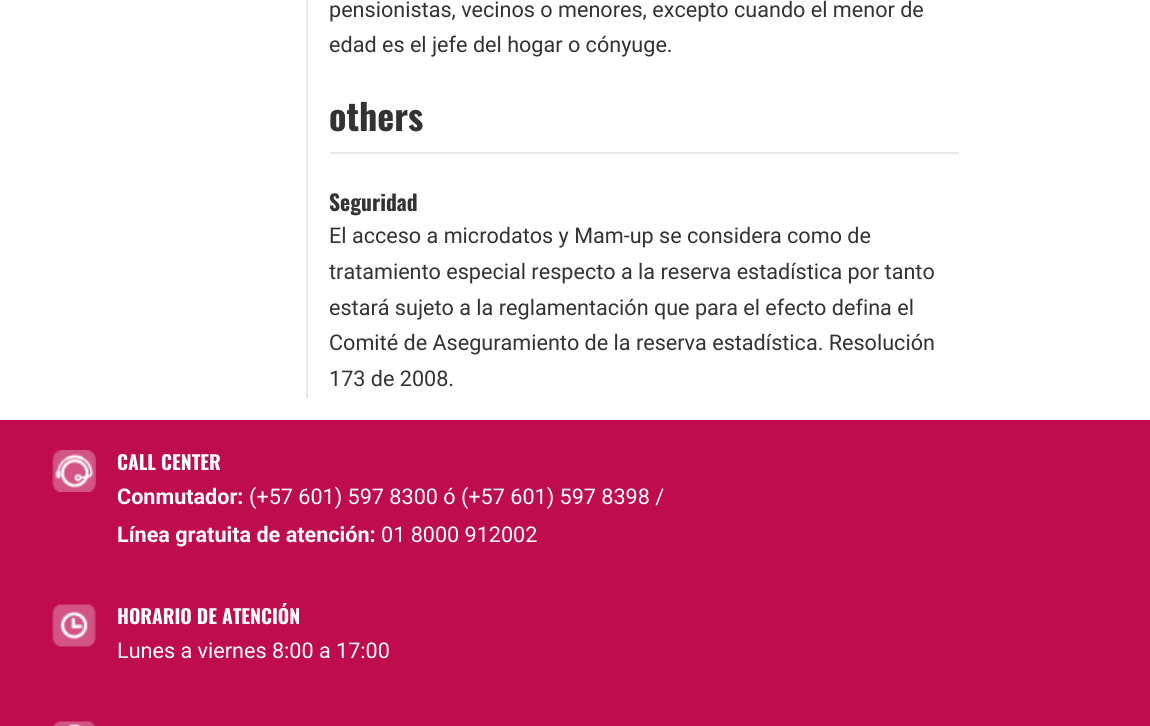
import math
import cairo

surface = cairo.ImageSurface(cairo.FORMAT_RGB24, 1150, 726)
ctx = cairo.Context(surface)
options = cairo.FontOptions()
options.set_hint_metrics(cairo.HINT_METRICS_OFF)
options.set_hint_style(cairo.HINT_STYLE_NONE)
ctx.set_font_options(options)
ctx.set_miter_limit(4)


def set_color(code):
    ctx.set_source_rgb(*(v / 255 for v in bytes.fromhex(code[-6:])))


def draw_text(x, y, s, family, size, color, bold=False, italic=False):
    ctx.select_font_face(family, cairo.FONT_SLANT_ITALIC if italic else cairo.FONT_SLANT_NORMAL, cairo.FONT_WEIGHT_BOLD if bold else cairo.FONT_WEIGHT_NORMAL)
    ctx.set_font_size(size)
    set_color(color)
    ctx.move_to(x, y)
    ctx.show_text(s)


def fill_rect(x, y, w, h, color):
    set_color(color)
    ctx.rectangle(x, y, w, h)
    ctx.fill()


def draw_image(path, x, y, w, h):
    ctx.save()
    ctx.set_source_surface(cairo.ImageSurface.create_from_png(path), x, y)
    ctx.rectangle(x, y, w, h)
    ctx.fill()
    ctx.restore()


set_color("#ffffff")
ctx.paint()
fill_rect(306, 0, 2, 398, "#e8e8e8")
draw_text(329, 17, "pensionistas, vecinos o menores, excepto cuando el menor de", "Roboto", 21.6, "#333333")
draw_text(329, 52, "edad es el jefe del hogar o cónyuge.", "Roboto", 21.6, "#333333")
fill_rect(330, 152, 629, 2, "#e8e8e8")
draw_text(329, 131, "others", "Oswald", 36, "#333333", bold=True)
draw_text(329, 211, "Seguridad", "Oswald", 21.6, "#333333", bold=True)
draw_text(329, 243, "El acceso a microdatos y Mam-up se considera como de", "Roboto", 21.6, "#333333")
draw_text(329, 279, "tratamiento especial respecto a la reserva estadística por tanto", "Roboto", 21.6, "#333333")
draw_text(329, 315, "estará sujeto a la reglamentación que para el efecto defina el", "Roboto", 21.6, "#333333")
draw_text(329, 350, "Comité de Aseguramiento de la reserva estadística. Resolución", "Roboto", 21.6, "#333333")
draw_text(329, 386, "173 de 2008.", "Roboto", 21.6, "#333333")
fill_rect(0, 420, 1150, 306, "#be0c4d")
draw_image("assets/img1.png", 52, 450, 44, 42)
draw_text(117, 470, "CALL CENTER", "Oswald", 19.5, "#ffffff", bold=True)
draw_text(117, 504, "Conmutador:", "Roboto", 21.6, "#ffffff", bold=True)
draw_text(249, 504, "(+57 601) 597 8300 ó (+57 601) 597 8398 /", "Roboto", 21.6, "#ffffff")
draw_text(117, 542, "Línea gratuita de atención:", "Roboto", 21.6, "#ffffff", bold=True)
draw_text(381, 542, "01 8000 912002", "Roboto", 21.6, "#ffffff")
draw_image("assets/img2.png", 52, 604, 44, 43)
draw_text(117, 624, "HORARIO DE ATENCIÓN", "Oswald", 19.5, "#ffffff", bold=True)
draw_text(117, 658, "Lunes a viernes 8:00 a 17:00", "Roboto", 21.6, "#ffffff")
draw_image("assets/img3.png", 53, 721, 42, 5)
surface.write_to_png("output.png")
